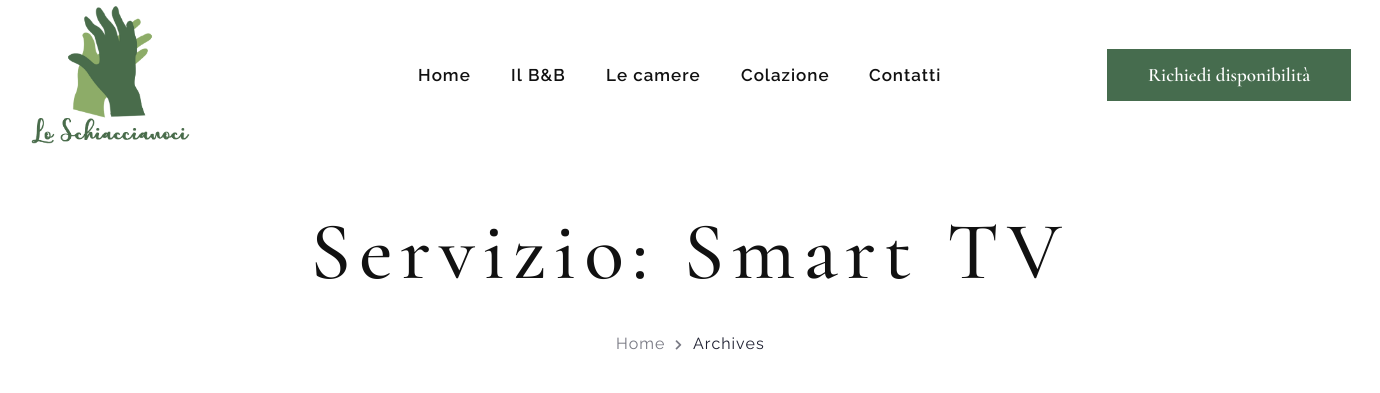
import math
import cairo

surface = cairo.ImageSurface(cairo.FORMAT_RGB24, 1380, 393)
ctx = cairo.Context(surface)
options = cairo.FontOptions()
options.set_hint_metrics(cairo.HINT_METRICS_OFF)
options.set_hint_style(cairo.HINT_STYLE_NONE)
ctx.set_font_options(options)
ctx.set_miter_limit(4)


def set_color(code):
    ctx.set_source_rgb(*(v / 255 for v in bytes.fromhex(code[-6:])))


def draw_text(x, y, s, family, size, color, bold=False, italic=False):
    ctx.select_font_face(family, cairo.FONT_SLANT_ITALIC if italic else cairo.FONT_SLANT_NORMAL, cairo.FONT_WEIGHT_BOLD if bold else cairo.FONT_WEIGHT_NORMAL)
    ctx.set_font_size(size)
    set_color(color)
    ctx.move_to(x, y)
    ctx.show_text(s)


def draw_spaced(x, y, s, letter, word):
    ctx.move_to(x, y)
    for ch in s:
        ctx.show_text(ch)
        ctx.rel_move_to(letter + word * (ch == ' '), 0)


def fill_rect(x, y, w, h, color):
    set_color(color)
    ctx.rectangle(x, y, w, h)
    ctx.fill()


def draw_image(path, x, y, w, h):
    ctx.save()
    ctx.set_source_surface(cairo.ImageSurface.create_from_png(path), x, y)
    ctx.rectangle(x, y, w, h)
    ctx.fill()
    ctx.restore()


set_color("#ffffff")
ctx.paint()
draw_image("assets/img1.png", 31, 6, 159, 138)
ctx.select_font_face("Raleway SemiBold")
ctx.set_font_size(17)
set_color("#111111")
draw_spaced(418, 81, "Home", 1, 0)
draw_spaced(511, 81, "Il B&B", 1, 0)
draw_spaced(606, 81, "Le camere", 1, 0)
draw_spaced(741, 81, "Colazione", 1, 0)
draw_spaced(869, 81, "Contatti", 1, 0)
ctx.rectangle(1107.5, 49.5, 243, 51)
set_color("#466c4e")
ctx.set_line_width(1)
ctx.stroke()
fill_rect(1108, 50, 242, 50, "#466c4e")
draw_text(1148, 81, "Richiedi disponibilità", "Cormorant Garamond SemiBold", 19, "#ffffff")
ctx.select_font_face("Cormorant Garamond Medium")
ctx.set_font_size(82)
set_color("#111111")
draw_spaced(310, 278, "Servizio: Smart TV", 8, 0)
ctx.select_font_face("Raleway")
ctx.set_font_size(16)
set_color("#787983")
draw_spaced(616, 349, "Home", 1, 0)
draw_image("assets/img2.png", 675, 340, 7, 10)
set_color("#1e2031")
draw_spaced(693, 349, "Archives", 1, 0)
surface.write_to_png("output.png")
